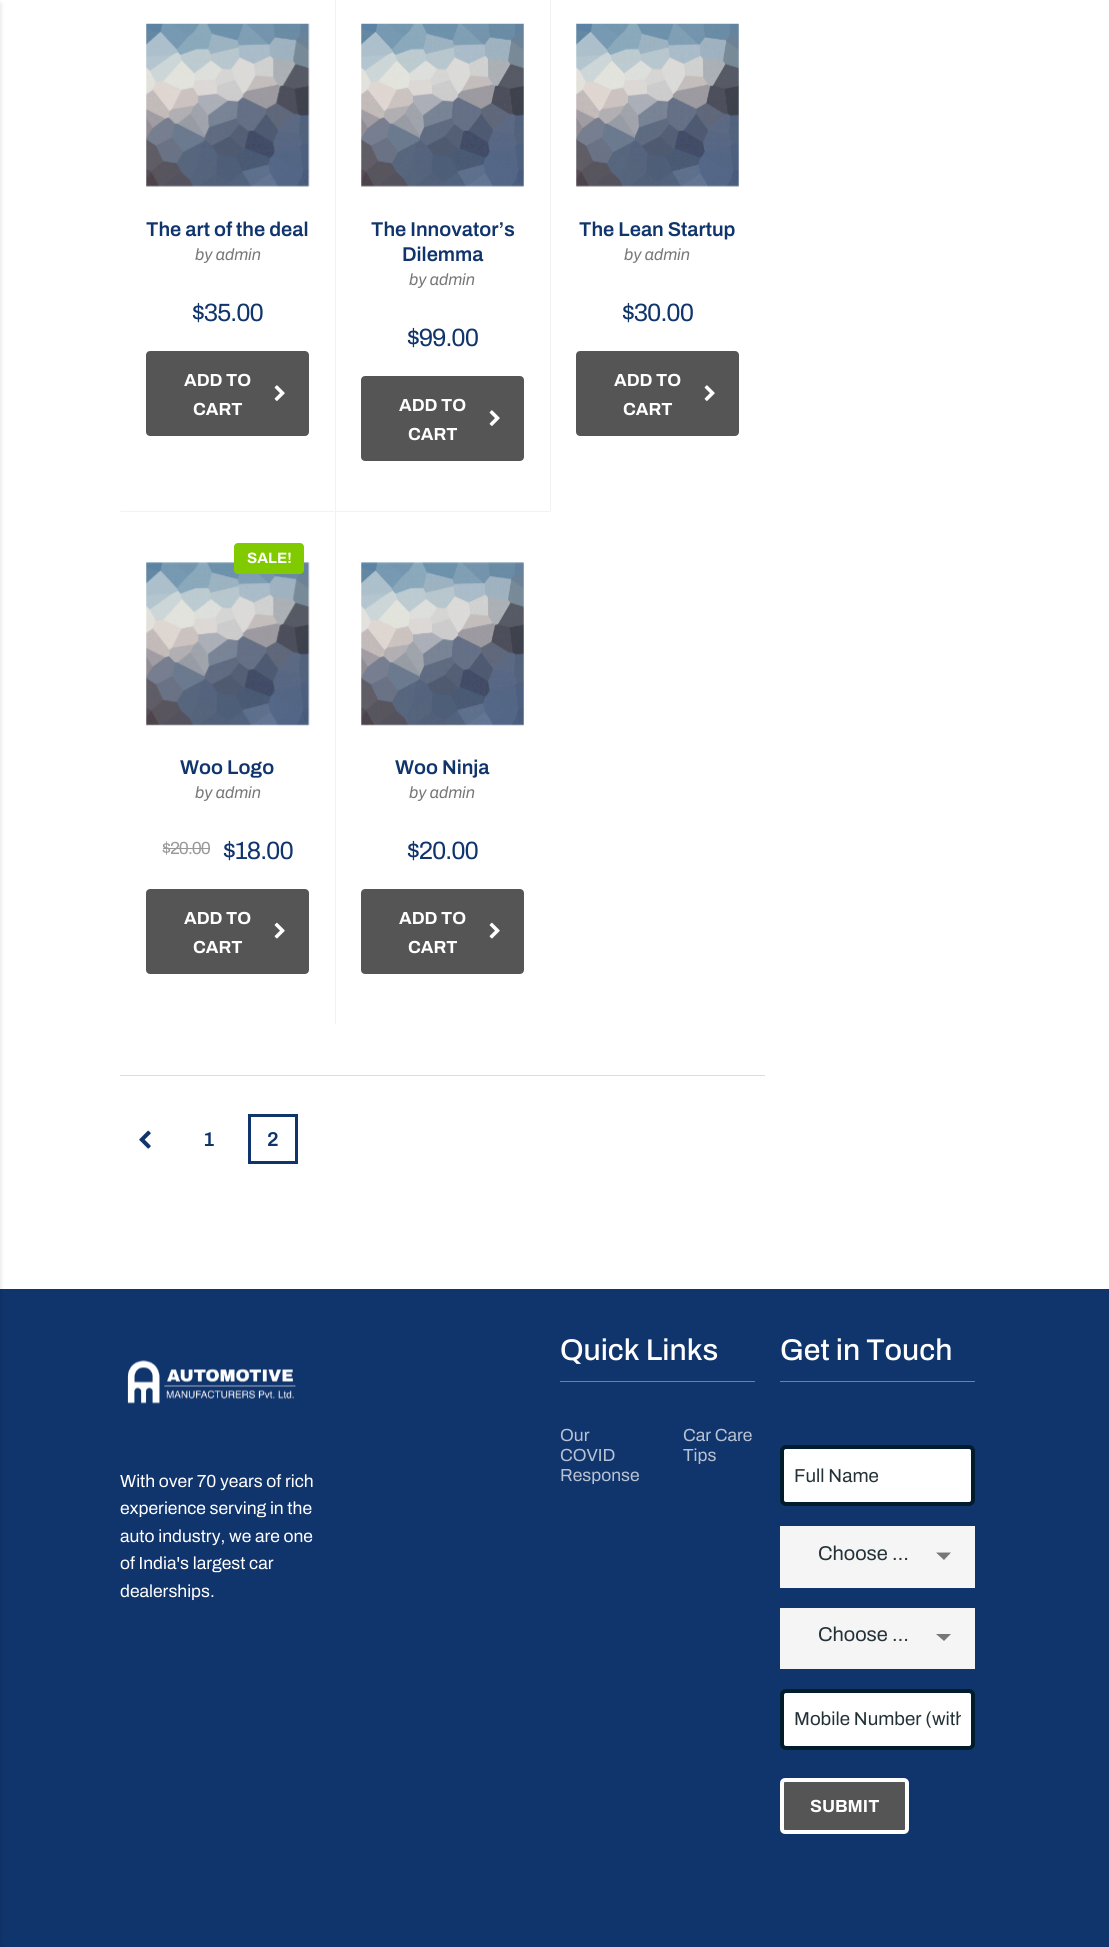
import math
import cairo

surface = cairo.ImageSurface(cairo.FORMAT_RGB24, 1109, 1947)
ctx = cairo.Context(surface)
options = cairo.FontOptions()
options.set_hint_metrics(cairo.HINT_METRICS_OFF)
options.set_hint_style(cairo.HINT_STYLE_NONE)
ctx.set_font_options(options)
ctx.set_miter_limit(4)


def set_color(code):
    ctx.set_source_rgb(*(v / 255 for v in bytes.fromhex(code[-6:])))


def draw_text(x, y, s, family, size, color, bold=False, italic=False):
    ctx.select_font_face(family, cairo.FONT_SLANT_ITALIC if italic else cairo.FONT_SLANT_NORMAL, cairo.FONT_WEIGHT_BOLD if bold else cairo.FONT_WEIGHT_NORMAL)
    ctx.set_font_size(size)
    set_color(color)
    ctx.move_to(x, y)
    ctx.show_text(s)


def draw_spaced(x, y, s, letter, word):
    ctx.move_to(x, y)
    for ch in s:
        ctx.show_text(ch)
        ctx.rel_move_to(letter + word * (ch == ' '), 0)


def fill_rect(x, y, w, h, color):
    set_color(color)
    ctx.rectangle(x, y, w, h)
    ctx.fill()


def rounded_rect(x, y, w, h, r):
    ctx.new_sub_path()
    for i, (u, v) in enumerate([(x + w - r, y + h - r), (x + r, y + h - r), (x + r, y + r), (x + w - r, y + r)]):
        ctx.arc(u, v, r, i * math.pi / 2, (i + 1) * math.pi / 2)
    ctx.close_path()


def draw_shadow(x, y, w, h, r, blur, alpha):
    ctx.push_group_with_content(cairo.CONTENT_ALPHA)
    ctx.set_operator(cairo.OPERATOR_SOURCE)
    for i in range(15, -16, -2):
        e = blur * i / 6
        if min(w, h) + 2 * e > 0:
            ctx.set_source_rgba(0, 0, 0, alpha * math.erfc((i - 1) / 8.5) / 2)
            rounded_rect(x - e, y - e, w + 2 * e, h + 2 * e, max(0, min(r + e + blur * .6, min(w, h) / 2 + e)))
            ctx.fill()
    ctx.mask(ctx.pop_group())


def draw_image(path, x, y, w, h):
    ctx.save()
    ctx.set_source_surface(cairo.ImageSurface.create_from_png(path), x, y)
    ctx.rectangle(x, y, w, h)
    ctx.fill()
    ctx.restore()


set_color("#ffffff")
ctx.paint()
fill_rect(0, 1289, 1109, 658, "#10346c")
set_color("#000000")
draw_shadow(-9, 4, 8, 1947, 0, 3, 0.2)
fill_rect(120, 1075, 645, 1, "#dddddd")
draw_image("assets/img1.png", 146, 23, 164, 164)
draw_text(146, 236, "The art of the deal", "Archivo SemiBold", 20, "#10346c")
draw_text(195, 260, "by admin", "Archivo", 16.25, "#777777", italic=True)
ctx.select_font_face("Archivo")
ctx.set_font_size(25)
set_color("#10346c")
draw_spaced(192, 321, "$35.00", -1, 0)
set_color("#555555")
rounded_rect(148, 353, 159, 81, 2)
ctx.fill_preserve()
ctx.set_line_width(4)
ctx.stroke()
draw_text(184, 386, "ADD TO", "Archivo", 17.5, "#ffffff", bold=True)
draw_image("assets/img2.png", 274, 385, 11, 16)
draw_text(193, 415, "CART", "Archivo", 17.5, "#ffffff", bold=True)
set_color("#f2f2f2")
ctx.new_path()
ctx.move_to(335, 512)
ctx.line_to(335, -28)
ctx.line_to(336, -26)
ctx.line_to(336, 511)
ctx.close_path()
ctx.fill()
draw_image("assets/img3.png", 361, 23, 163, 164)
draw_text(371, 236, "The Innovator’s", "Archivo SemiBold", 20, "#10346c")
draw_text(402, 261, "Dilemma", "Archivo SemiBold", 20, "#10346c")
draw_text(409, 285, "by admin", "Archivo", 16.25, "#777777", italic=True)
ctx.select_font_face("Archivo")
ctx.set_font_size(25)
set_color("#10346c")
draw_spaced(407, 346, "$99.00", -1, 0)
set_color("#555555")
rounded_rect(363, 378, 159, 81, 2)
ctx.fill_preserve()
ctx.stroke()
draw_text(399, 411, "ADD TO", "Archivo", 17.5, "#ffffff", bold=True)
draw_image("assets/img2.png", 489, 410, 11, 16)
draw_text(408, 440, "CART", "Archivo", 17.5, "#ffffff", bold=True)
set_color("#f2f2f2")
ctx.new_path()
ctx.move_to(550, 512)
ctx.line_to(550, -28)
ctx.line_to(551, -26)
ctx.line_to(551, 511)
ctx.close_path()
ctx.fill()
draw_image("assets/img3.png", 576, 23, 163, 164)
draw_text(579, 236, "The Lean Startup", "Archivo SemiBold", 20, "#10346c")
draw_text(624, 260, "by admin", "Archivo", 16.25, "#777777", italic=True)
ctx.select_font_face("Archivo")
ctx.set_font_size(25)
set_color("#10346c")
draw_spaced(622, 321, "$30.00", -1, 0)
set_color("#555555")
rounded_rect(578, 353, 159, 81, 2)
ctx.fill_preserve()
ctx.stroke()
draw_text(614, 386, "ADD TO", "Archivo", 17.5, "#ffffff", bold=True)
draw_image("assets/img2.png", 704, 385, 11, 16)
draw_text(623, 415, "CART", "Archivo", 17.5, "#ffffff", bold=True)
set_color("#f2f2f2")
ctx.new_path()
ctx.move_to(120, 511)
ctx.line_to(335, 511)
ctx.line_to(334, 512)
ctx.line_to(121, 512)
ctx.close_path()
ctx.fill()
draw_image("assets/img4.png", 146, 562, 164, 164)
set_color("#81ca00")
rounded_rect(234, 543, 70, 31, 4)
ctx.fill()
draw_text(247, 563, "SALE!", "Archivo", 15, "#ffffff", bold=True)
draw_text(180, 774, "Woo Logo", "Archivo SemiBold", 20, "#10346c")
draw_text(195, 798, "by admin", "Archivo", 16.25, "#777777", italic=True)
ctx.select_font_face("Archivo")
ctx.set_font_size(17.5)
set_color("#999999")
draw_spaced(162, 854, "$20.00", -1, 0)
fill_rect(163, 848, 47, 1, "#999999")
ctx.set_font_size(25)
set_color("#10346c")
draw_spaced(223, 859, "$18.00", -1, 0)
set_color("#555555")
rounded_rect(148, 891, 159, 81, 2)
ctx.fill_preserve()
ctx.stroke()
draw_text(184, 924, "ADD TO", "Archivo", 17.5, "#ffffff", bold=True)
draw_image("assets/img5.png", 274, 922, 11, 17)
draw_text(193, 953, "CART", "Archivo", 17.5, "#ffffff", bold=True)
set_color("#f2f2f2")
ctx.new_path()
ctx.move_to(335, 511)
ctx.line_to(550, 511)
ctx.line_to(549, 512)
ctx.line_to(336, 512)
ctx.close_path()
ctx.fill()
ctx.new_path()
ctx.move_to(335, 1025)
ctx.line_to(335, 511)
ctx.line_to(336, 512)
ctx.line_to(336, 1024)
ctx.close_path()
ctx.fill()
draw_image("assets/img6.png", 361, 562, 163, 164)
draw_text(395, 774, "Woo Ninja", "Archivo SemiBold", 20, "#10346c")
draw_text(409, 798, "by admin", "Archivo", 16.25, "#777777", italic=True)
ctx.select_font_face("Archivo")
ctx.set_font_size(25)
set_color("#10346c")
draw_spaced(407, 859, "$20.00", -1, 0)
set_color("#555555")
rounded_rect(363, 891, 159, 81, 2)
ctx.fill_preserve()
ctx.stroke()
draw_text(399, 924, "ADD TO", "Archivo", 17.5, "#ffffff", bold=True)
draw_image("assets/img5.png", 489, 922, 11, 17)
draw_text(408, 953, "CART", "Archivo", 17.5, "#ffffff", bold=True)
draw_image("assets/img7.png", 139, 1130, 12, 19)
draw_text(203, 1146, "1", "Archivo SemiBold", 20, "#10346c")
ctx.rectangle(249.5, 1115.5, 47, 47)
ctx.set_line_width(3)
ctx.stroke()
draw_text(267, 1146, "2", "Archivo SemiBold", 20, "#10346c")
draw_image("assets/img8.png", 127, 1360, 169, 44)
draw_text(120, 1487, "With over 70 years of rich", "Archivo", 17.5, "#ffffff")
draw_text(120, 1514, "experience serving in the", "Archivo", 17.5, "#ffffff")
draw_text(120, 1542, "auto industry, we are one", "Archivo", 17.5, "#ffffff")
draw_text(120, 1569, "of India's largest car", "Archivo", 17.5, "#ffffff")
draw_text(120, 1597, "dealerships.", "Archivo", 17.5, "#ffffff")
fill_rect(560, 1381, 195, 1, "#6e809c")
draw_text(560, 1360, "Quick Links", "Archivo Medium", 30, "#ffffff")
draw_text(560, 1441, "Our", "Archivo", 17.5, "#b7c2d3")
draw_text(560, 1461, "COVID", "Archivo", 17.5, "#b7c2d3")
draw_text(560, 1481, "Response", "Archivo", 17.5, "#b7c2d3")
draw_text(683, 1441, "Car Care", "Archivo", 17.5, "#b7c2d3")
draw_text(683, 1461, "Tips", "Archivo", 17.5, "#b7c2d3")
fill_rect(780, 1381, 195, 1, "#6e809c")
draw_text(780, 1360, "Get in Touch", "Archivo Medium", 30, "#ffffff")
rounded_rect(782, 1447, 191, 57, 4)
ctx.fill_preserve()
set_color("#001c2d")
ctx.set_line_width(4)
ctx.stroke()
draw_text(794, 1482, "Full Name", "Archivo", 18.75, "#243238")
fill_rect(780, 1526, 195, 62, "#f5f5f5")
draw_text(818, 1560, "Choose …", "Archivo", 20, "#243238")
set_color("#777777")
ctx.new_path()
ctx.move_to(936, 1552.5)
ctx.line_to(951, 1552.5)
ctx.line_to(944, 1560)
ctx.close_path()
ctx.fill()
fill_rect(780, 1608, 195, 61, "#f5f5f5")
draw_text(818, 1641, "Choose …", "Archivo", 20, "#243238")
set_color("#777777")
ctx.new_path()
ctx.move_to(936, 1634)
ctx.line_to(951, 1634)
ctx.line_to(944, 1641)
ctx.close_path()
ctx.fill()
set_color("#ffffff")
rounded_rect(782, 1691, 191, 57, 4)
ctx.fill_preserve()
set_color("#001c2d")
ctx.stroke()
ctx.save()
ctx.rectangle(794, 1709, 167, 20)
ctx.clip()
draw_text(794, 1725, "Mobile Number (with", "Archivo", 18.75, "#243238")
ctx.restore()
set_color("#555555")
rounded_rect(782, 1780, 125, 52, 3)
ctx.fill_preserve()
set_color("#ffffff")
ctx.stroke()
draw_text(810, 1812, "SUBMIT", "Archivo", 17.5, "#ffffff", bold=True)
surface.write_to_png("output.png")
